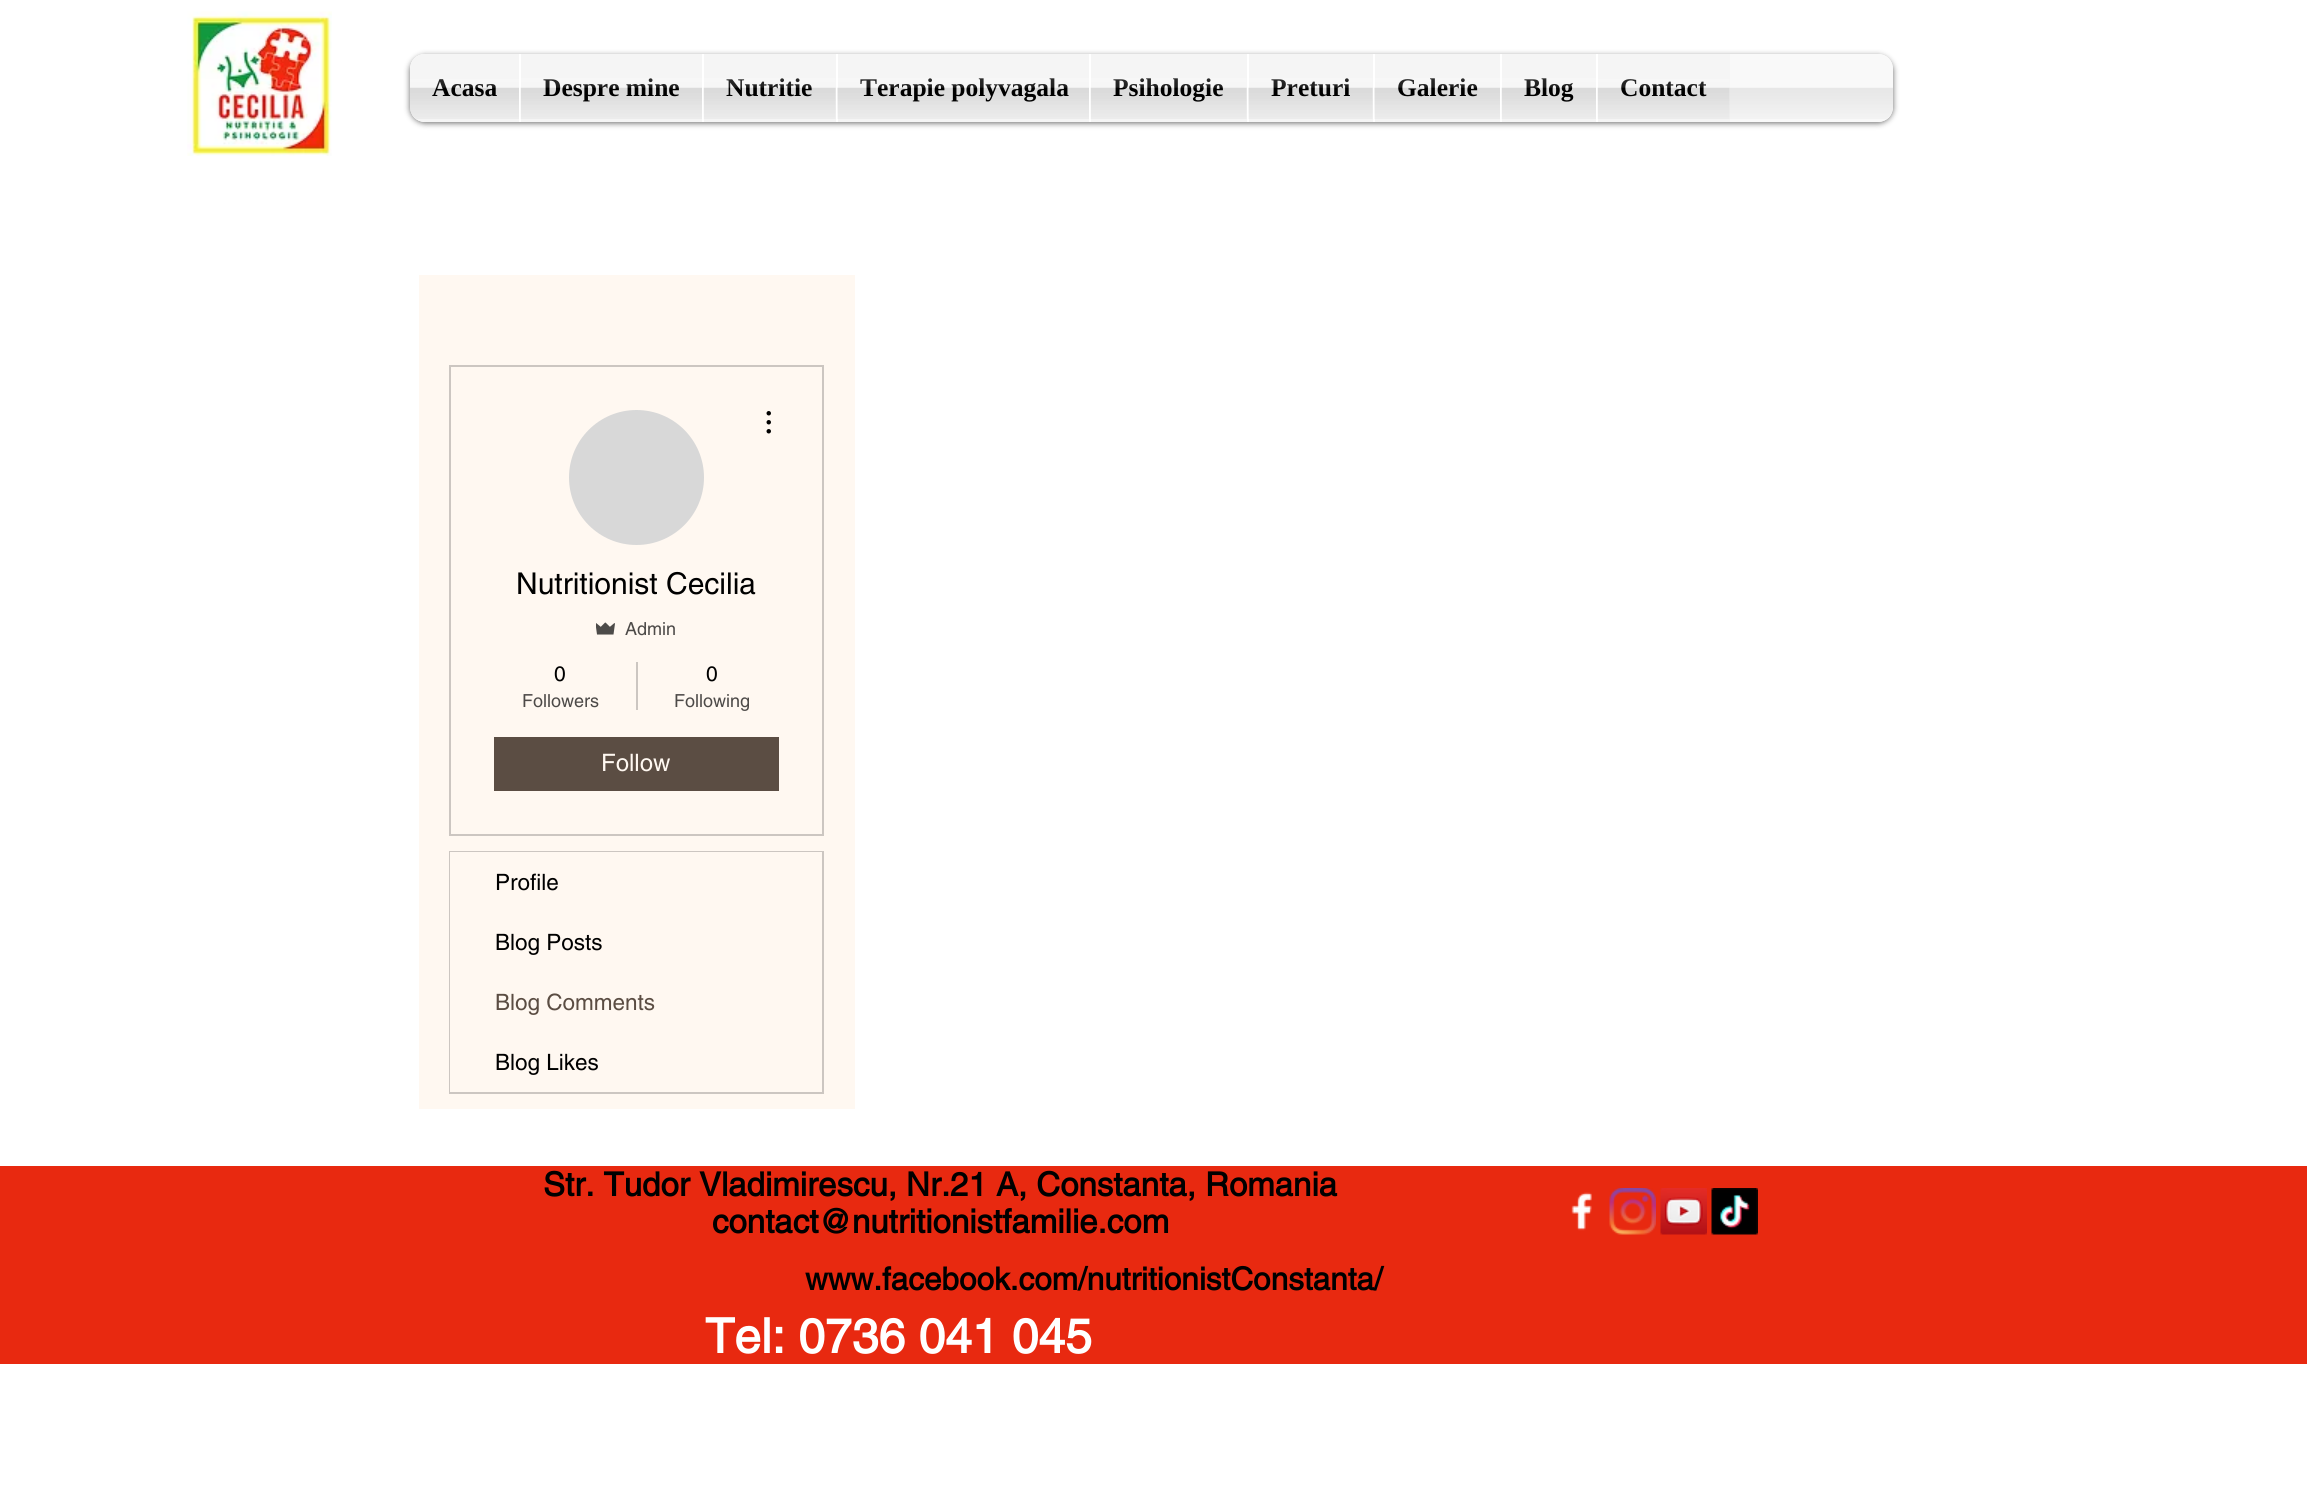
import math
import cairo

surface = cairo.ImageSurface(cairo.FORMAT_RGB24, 2307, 1499)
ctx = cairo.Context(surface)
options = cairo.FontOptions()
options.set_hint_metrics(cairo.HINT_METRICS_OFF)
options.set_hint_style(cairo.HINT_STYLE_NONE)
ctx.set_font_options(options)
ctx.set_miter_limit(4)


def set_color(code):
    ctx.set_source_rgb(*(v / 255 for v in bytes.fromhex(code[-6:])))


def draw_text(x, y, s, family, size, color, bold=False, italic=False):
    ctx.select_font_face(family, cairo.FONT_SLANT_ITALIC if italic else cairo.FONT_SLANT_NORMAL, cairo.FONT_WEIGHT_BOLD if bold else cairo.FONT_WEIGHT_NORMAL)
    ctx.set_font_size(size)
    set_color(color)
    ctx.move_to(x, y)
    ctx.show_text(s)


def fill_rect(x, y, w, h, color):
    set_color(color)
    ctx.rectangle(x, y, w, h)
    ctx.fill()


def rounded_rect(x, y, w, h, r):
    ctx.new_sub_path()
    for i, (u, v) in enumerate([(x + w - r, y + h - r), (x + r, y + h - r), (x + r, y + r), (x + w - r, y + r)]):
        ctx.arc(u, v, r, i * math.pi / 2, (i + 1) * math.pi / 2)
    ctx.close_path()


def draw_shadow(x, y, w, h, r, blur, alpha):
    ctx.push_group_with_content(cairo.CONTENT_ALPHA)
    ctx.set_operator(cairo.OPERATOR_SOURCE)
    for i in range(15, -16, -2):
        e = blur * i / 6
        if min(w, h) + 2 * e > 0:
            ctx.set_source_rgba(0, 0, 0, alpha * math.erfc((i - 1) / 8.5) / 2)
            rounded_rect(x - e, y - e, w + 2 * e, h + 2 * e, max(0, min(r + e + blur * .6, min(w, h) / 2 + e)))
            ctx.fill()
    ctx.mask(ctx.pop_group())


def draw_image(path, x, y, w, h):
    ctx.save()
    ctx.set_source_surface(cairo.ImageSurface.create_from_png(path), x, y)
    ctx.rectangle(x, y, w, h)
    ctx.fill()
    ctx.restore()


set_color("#ffffff")
ctx.paint()
draw_image("assets/img1.png", 187, 11, 145, 145)
ctx.save()
ctx.set_fill_rule(cairo.FILL_RULE_EVEN_ODD)
ctx.new_path()
ctx.move_to(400, 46)
ctx.line_to(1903, 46)
ctx.line_to(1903, 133)
ctx.line_to(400, 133)
ctx.close_path()
ctx.move_to(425, 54)
ctx.line_to(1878, 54)
ctx.curve_to(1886.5, 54, 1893, 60.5, 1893, 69)
ctx.line_to(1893, 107)
ctx.curve_to(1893, 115.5, 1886.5, 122, 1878, 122)
ctx.line_to(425, 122)
ctx.curve_to(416.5, 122, 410, 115.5, 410, 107)
ctx.line_to(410, 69)
ctx.curve_to(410, 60.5, 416.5, 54, 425, 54)
ctx.close_path()
ctx.clip()
set_color("#000000")
draw_shadow(410, 56, 1483, 67, 15, 3, 0.6)
ctx.restore()
ctx.set_source_rgba(0.945, 0.945, 0.945, 0.4)
rounded_rect(410, 54, 1483, 68, 15)
ctx.fill()
draw_image("assets/img2.png", 410, 87, 1483, 32)
ctx.new_path()
ctx.move_to(425, 54)
ctx.line_to(519, 54)
ctx.line_to(519, 122)
ctx.line_to(425, 122)
ctx.curve_to(416.5, 122, 410, 115.5, 410, 107)
ctx.line_to(410, 69)
ctx.curve_to(410, 60.5, 416.5, 54, 425, 54)
ctx.close_path()
ctx.fill()
draw_text(432, 96, "Acasa", "Liberation Serif", 25.5, "#000000", bold=True)
draw_image("assets/img3.png", 410, 79, 109, 40)
ctx.set_source_rgba(0.945, 0.945, 0.945, 0.4)
ctx.rectangle(521, 54, 181, 68)
ctx.fill()
fill_rect(519, 54, 2, 68, "#ffffff")
draw_text(543, 96, "Despre mine", "Liberation Serif", 25.5, "#000000", bold=True)
draw_image("assets/img4.png", 520, 78, 182, 41)
ctx.set_source_rgba(0.945, 0.945, 0.945, 0.4)
ctx.rectangle(704, 54, 132, 68)
ctx.fill()
fill_rect(702, 54, 2, 68, "#ffffff")
draw_text(726, 96, "Nutritie", "Liberation Serif", 25.5, "#000000", bold=True)
draw_image("assets/img5.png", 703, 78, 133, 41)
ctx.set_source_rgba(0.945, 0.945, 0.945, 0.4)
ctx.rectangle(838, 54, 251, 68)
ctx.fill()
fill_rect(836, 54, 2, 68, "#ffffff")
draw_text(860, 96, "Terapie polyvagala", "Liberation Serif", 25.5, "#000000", bold=True)
draw_image("assets/img6.png", 837, 78, 252, 41)
ctx.set_source_rgba(0.945, 0.945, 0.945, 0.4)
ctx.rectangle(1091, 54, 156, 68)
ctx.fill()
fill_rect(1089, 54, 2, 68, "#ffffff")
draw_text(1113, 96, "Psihologie", "Liberation Serif", 25.5, "#000000", bold=True)
draw_image("assets/img7.png", 1090, 78, 157, 41)
ctx.set_source_rgba(0.945, 0.945, 0.945, 0.4)
ctx.rectangle(1249, 54, 124, 68)
ctx.fill()
fill_rect(1247, 54, 2, 68, "#ffffff")
draw_text(1271, 96, "Preturi", "Liberation Serif", 25.5, "#000000", bold=True)
draw_image("assets/img8.png", 1248, 78, 125, 41)
ctx.set_source_rgba(0.945, 0.945, 0.945, 0.4)
ctx.rectangle(1375, 54, 125, 68)
ctx.fill()
fill_rect(1373, 54, 2, 68, "#ffffff")
draw_text(1397, 96, "Galerie", "Liberation Serif", 25.5, "#000000", bold=True)
draw_image("assets/img9.png", 1374, 78, 126, 41)
ctx.set_source_rgba(0.945, 0.945, 0.945, 0.4)
ctx.rectangle(1502, 54, 94, 68)
ctx.fill()
fill_rect(1500, 54, 2, 68, "#ffffff")
draw_text(1524, 96, "Blog", "Liberation Serif", 25.5, "#000000", bold=True)
draw_image("assets/img10.png", 1501, 78, 95, 41)
ctx.set_source_rgba(0.945, 0.945, 0.945, 0.4)
ctx.rectangle(1598, 54, 132, 68)
ctx.fill()
fill_rect(1596, 54, 2, 68, "#ffffff")
draw_text(1620, 96, "Contact", "Liberation Serif", 25.5, "#000000", bold=True)
draw_image("assets/img11.png", 1597, 79, 133, 40)
fill_rect(419, 275, 436, 834, "#fff8f1")
ctx.rectangle(450, 366, 373, 469)
set_color("#ccc6c1")
ctx.stroke()
set_color("#d8d8d8")
ctx.arc(636.5, 477.5, 67.5, 0, 2 * math.pi)
ctx.fill()
draw_image("assets/img12.png", 766, 411, 5, 23)
draw_text(516, 594, "Nutritionist Cecilia", "helvetica", 30, "#000000")
draw_image("assets/img13.png", 596, 622, 19, 13)
draw_text(625, 635, "Admin", "helvetica", 18, "#4d4a48")
draw_text(554, 681, "0", "helvetica", 21, "#000000")
draw_text(522, 707, "Followers", "helvetica", 18, "#4d4a48")
fill_rect(636, 662, 2, 48, "#ccc6c1")
draw_text(706, 681, "0", "helvetica", 21, "#000000")
draw_text(674, 707, "Following", "helvetica", 18, "#4d4a48")
fill_rect(494, 737, 285, 54, "#5b4d43")
draw_text(601, 771, "Follow", "helvetica", 24, "#fff8f1")
ctx.rectangle(450, 852, 373, 241)
set_color("#ccc6c1")
ctx.stroke()
fill_rect(450, 852, 372, 60, "#fff8f1")
draw_text(495, 890, "Profile", "helvetica", 22.5, "#000000")
fill_rect(450, 912, 1, 180, "#fff8f1")
draw_text(495, 950, "Blog Posts", "helvetica", 22.5, "#000000")
draw_text(495, 1010, "Blog Comments", "helvetica", 22.5, "#5b4d43")
draw_text(495, 1070, "Blog Likes", "helvetica", 22.5, "#000000")
fill_rect(0, 1166, 2307, 198, "#e82910")
draw_text(543, 1196, "Str. Tudor Vladimirescu, Nr.21 A, Constanta, Romania", "helvetica", 33, "#000000", bold=True)
draw_text(712, 1233, "contact@nutritionistfamilie.com", "helvetica", 33, "#000000", bold=True)
draw_image("assets/img14.png", 1571, 1192, 21, 39)
draw_image("assets/img15.png", 1609, 1188, 47, 47)
draw_image("assets/img16.png", 1660, 1188, 47, 47)
draw_image("assets/img17.png", 1711, 1188, 47, 47)
draw_text(805, 1290, "www.facebook.com/nutritionistConstanta/", "helvetica", 31.5, "#000000", bold=True)
draw_text(705, 1353, "Tel: 0736 041 045", "helvetica", 48, "#ffffff", bold=True)
surface.write_to_png("output.png")
